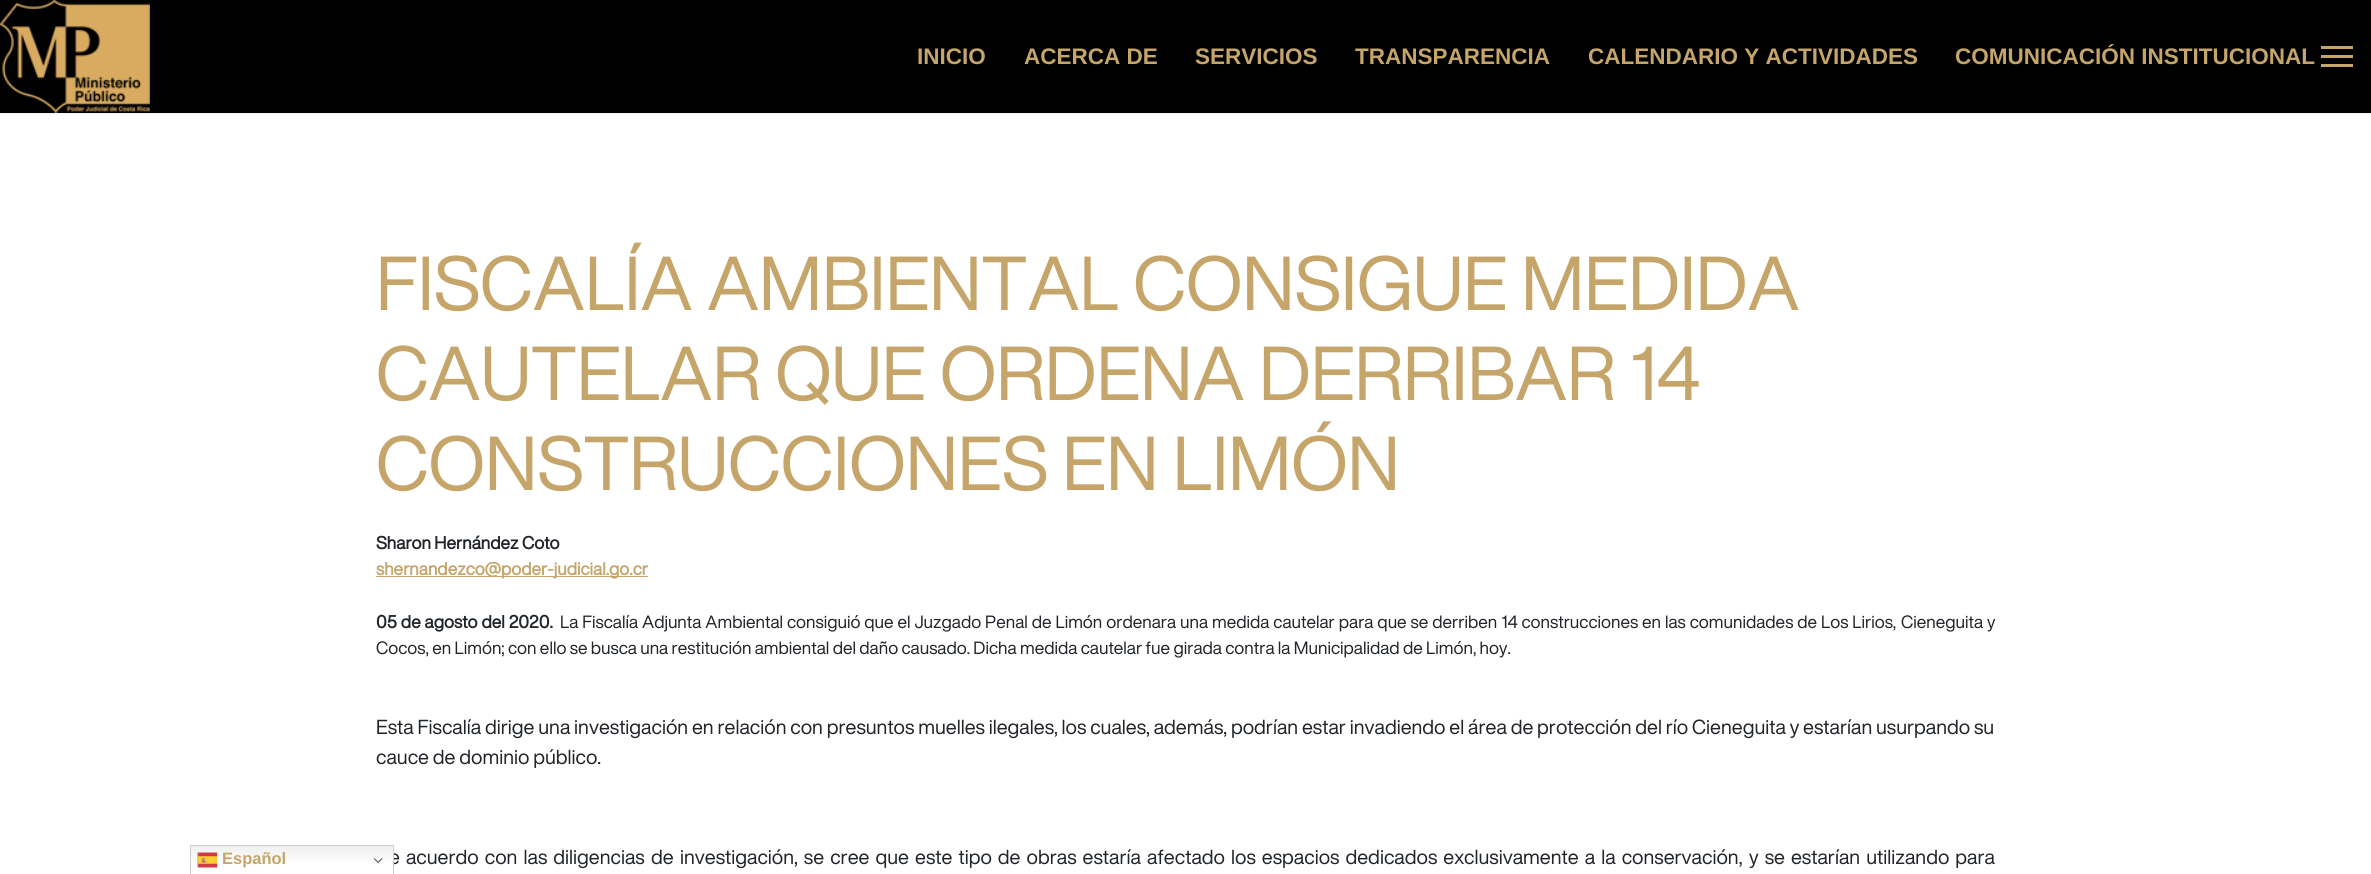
import math
import cairo

surface = cairo.ImageSurface(cairo.FORMAT_RGB24, 2371, 874)
ctx = cairo.Context(surface)
options = cairo.FontOptions()
options.set_hint_metrics(cairo.HINT_METRICS_OFF)
options.set_hint_style(cairo.HINT_STYLE_NONE)
ctx.set_font_options(options)
ctx.set_miter_limit(4)


def set_color(code):
    ctx.set_source_rgb(*(v / 255 for v in bytes.fromhex(code[-6:])))


def draw_text(x, y, s, family, size, color, bold=False, italic=False):
    ctx.select_font_face(family, cairo.FONT_SLANT_ITALIC if italic else cairo.FONT_SLANT_NORMAL, cairo.FONT_WEIGHT_BOLD if bold else cairo.FONT_WEIGHT_NORMAL)
    ctx.set_font_size(size)
    set_color(color)
    ctx.move_to(x, y)
    ctx.show_text(s)


def draw_spaced(x, y, s, letter, word):
    ctx.move_to(x, y)
    for ch in s:
        ctx.show_text(ch)
        ctx.rel_move_to(letter + word * (ch == ' '), 0)


def fill_rect(x, y, w, h, color):
    set_color(color)
    ctx.rectangle(x, y, w, h)
    ctx.fill()


def rounded_rect(x, y, w, h, r):
    ctx.new_sub_path()
    for i, (u, v) in enumerate([(x + w - r, y + h - r), (x + r, y + h - r), (x + r, y + r), (x + w - r, y + r)]):
        ctx.arc(u, v, r, i * math.pi / 2, (i + 1) * math.pi / 2)
    ctx.close_path()


def draw_shadow(x, y, w, h, r, blur, alpha):
    ctx.push_group_with_content(cairo.CONTENT_ALPHA)
    ctx.set_operator(cairo.OPERATOR_SOURCE)
    for i in range(15, -16, -2):
        e = blur * i / 6
        if min(w, h) + 2 * e > 0:
            ctx.set_source_rgba(0, 0, 0, alpha * math.erfc((i - 1) / 8.5) / 2)
            rounded_rect(x - e, y - e, w + 2 * e, h + 2 * e, max(0, min(r + e + blur * .6, min(w, h) / 2 + e)))
            ctx.fill()
    ctx.mask(ctx.pop_group())


def draw_image(path, x, y, w, h):
    ctx.save()
    ctx.set_source_surface(cairo.ImageSurface.create_from_png(path), x, y)
    ctx.rectangle(x, y, w, h)
    ctx.fill()
    ctx.restore()


set_color("#ffffff")
ctx.paint()
set_color("#000000")
draw_shadow(0, 0, 2371, 113, 0, 2.5, 0.1)
fill_rect(0, 0, 2371, 113, "#000000")
draw_image("assets/img1.png", 0, 0, 150, 113)
draw_text(917, 64, "INICIO", "Liberation Sans", 22.5, "#c5a56a", bold=True)
draw_text(1024, 64, "ACERCA DE", "Liberation Sans", 22.5, "#c5a56a", bold=True)
draw_text(1195, 64, "SERVICIOS", "Liberation Sans", 22.5, "#c5a56a", bold=True)
draw_text(1355, 64, "TRANSPARENCIA", "Liberation Sans", 22.5, "#c5a56a", bold=True)
draw_text(1588, 64, "CALENDARIO Y ACTIVIDADES", "Liberation Sans", 22.5, "#c5a56a", bold=True)
draw_text(1955, 64, "COMUNICACIÓN INSTITUCIONAL", "Liberation Sans", 22.5, "#c5a56a", bold=True)
fill_rect(2321, 46, 32, 3, "#c5a56a")
fill_rect(2321, 55, 32, 3, "#c5a56a")
fill_rect(2321, 64, 32, 3, "#c5a56a")
ctx.select_font_face("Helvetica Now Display")
ctx.set_font_size(20)
set_color("#212529")
draw_spaced(389, 864, "e acuerdo con las diligencias", 0, 2.25)
gradient = cairo.LinearGradient(292, 845, 292, 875)
gradient.add_color_stop_rgba(0, 0.937, 0.937, 0.937, 1)
gradient.add_color_stop_rgba(0.7, 1, 1, 1, 1)
ctx.set_source(gradient)
ctx.rectangle(191, 846, 202, 18)
ctx.fill()
ctx.rectangle(190.5, 845.5, 203, 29)
set_color("#cccccc")
ctx.set_line_width(1)
ctx.stroke()
draw_image("assets/img2.png", 197, 852, 21, 16)
draw_text(222, 864, "Español", "Liberation Sans", 16.5, "#c5a56a", bold=True)
draw_image("assets/img3.png", 374, 858, 9, 6)
draw_text(376, 310, "FISCALÍA AMBIENTAL CONSIGUE MEDIDA", "Helvetica Now Display", 75, "#c5a56a")
draw_text(376, 400, "CAUTELAR QUE ORDENA DERRIBAR 14", "Helvetica Now Display", 75, "#c5a56a")
draw_text(376, 490, "CONSTRUCCIONES EN LIMÓN", "Helvetica Now Display", 75, "#c5a56a")
draw_text(376, 549, "Sharon Hernández Coto", "Helvetica Now Display", 17.5, "#212529", bold=True)
fill_rect(376, 576, 272, 1, "#c5a56a")
draw_text(376, 575, "shernandezco@poder-judicial.go.cr", "Helvetica Now Display", 17.5, "#c5a56a", bold=True)
set_color("#212529")
draw_spaced(376, 628, "05 de agosto del 2020.", 0, 0.6)
ctx.select_font_face("Helvetica Now Display")
draw_spaced(560, 628, "La Fiscalía Adjunta Ambiental consiguió que el Juzgado Penal de Limón ordenara una medida cautelar para que se derriben 14 construcciones en las comunidades de Los Lirios,", 0, 0.6)
draw_text(1901, 628, "Cieneguita", "Helvetica Now Display", 17.5, "#212529")
draw_text(1987, 628, "y", "Helvetica Now Display", 17.5, "#212529")
draw_text(376, 654, "Cocos, en Limón; con ello se busca una restitución ambiental del daño causado. Dicha medida cautelar fue girada contra la Municipalidad de Limón, hoy.", "Helvetica Now Display", 17.5, "#212529")
draw_text(376, 734, "Esta Fiscalía dirige una investigación en relación con presuntos muelles ilegales, los cuales, además, podrían estar invadiendo el área de protección del río Cieneguita y estarían usurpando su", "Helvetica Now Display", 20, "#212529")
draw_text(376, 764, "cauce de dominio público.", "Helvetica Now Display", 20, "#212529")
draw_text(651, 864, "de", "Helvetica Now Display", 20, "#212529")
draw_text(680, 864, "investigación", "Helvetica Now Display", 20, "#212529")
draw_spaced(794, 864, ", se cree que este tipo de obras estaría afectado los espacios dedicados exclusivamente a la conservación,", 0, 2.25)
draw_spaced(1749, 864, "y se estarían utilizando para", 0, 2.25)
surface.write_to_png("output.png")
